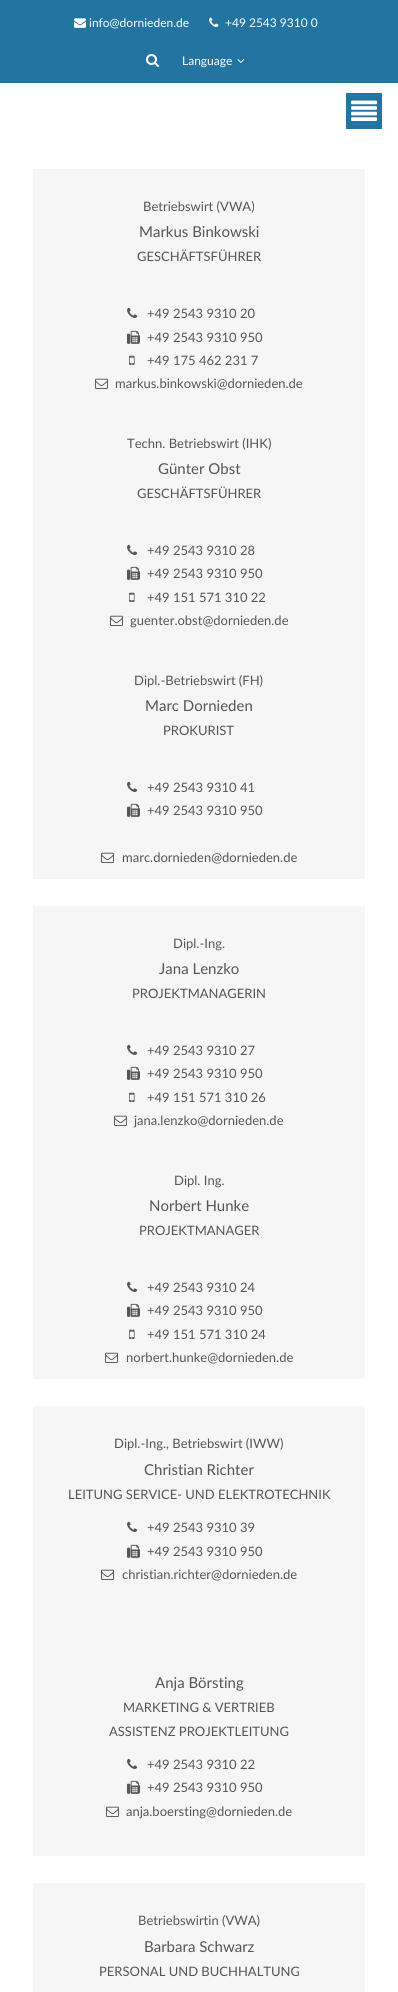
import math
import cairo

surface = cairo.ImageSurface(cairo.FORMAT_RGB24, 398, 1992)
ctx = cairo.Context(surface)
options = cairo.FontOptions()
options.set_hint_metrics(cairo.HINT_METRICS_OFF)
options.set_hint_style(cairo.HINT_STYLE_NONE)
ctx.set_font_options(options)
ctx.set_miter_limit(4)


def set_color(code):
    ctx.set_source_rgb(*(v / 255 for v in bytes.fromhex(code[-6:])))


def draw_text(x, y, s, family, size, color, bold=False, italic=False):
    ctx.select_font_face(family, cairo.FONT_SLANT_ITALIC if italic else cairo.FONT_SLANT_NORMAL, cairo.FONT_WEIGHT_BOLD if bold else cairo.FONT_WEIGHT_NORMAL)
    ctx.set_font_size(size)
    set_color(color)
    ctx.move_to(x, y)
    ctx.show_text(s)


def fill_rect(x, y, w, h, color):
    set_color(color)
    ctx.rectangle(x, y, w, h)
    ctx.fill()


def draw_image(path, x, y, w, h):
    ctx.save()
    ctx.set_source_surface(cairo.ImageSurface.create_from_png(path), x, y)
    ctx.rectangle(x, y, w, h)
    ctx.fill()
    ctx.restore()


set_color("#ffffff")
ctx.paint()
fill_rect(0, 0, 398, 83, "#2474a2")
draw_image("assets/img1.png", 74, 18, 12, 10)
draw_text(89, 27, "info@dornieden.de", "Lato", 12, "#ffffff")
draw_image("assets/img2.png", 209, 17, 10, 10)
draw_text(225, 27, "+49 2543 9310 0", "Lato", 12, "#ffffff")
draw_image("assets/img3.png", 146, 54, 13, 13)
draw_text(182, 65, "Language", "Lato", 12, "#ffffff")
draw_image("assets/img4.png", 237, 59, 8, 4)
fill_rect(346, 93, 36, 36, "#2474a2")
draw_image("assets/img5.png", 351, 100, 26, 21)
fill_rect(33, 169, 332, 710, "#f6f6f6")
draw_text(143, 211, "Betriebswirt (VWA)", "Lato", 13, "#555555")
draw_text(139, 237, "Markus Binkowski", "Lato", 15, "#555555")
draw_text(137, 261, "GESCHÄFTSFÜHRER", "Lato", 13, "#555555")
draw_image("assets/img6.png", 127, 307, 11, 11)
draw_text(147, 318, "+49 2543 9310 20", "Lato", 13, "#555555")
draw_image("assets/img7.png", 127, 330, 13, 14)
draw_text(147, 342, "+49 2543 9310 950", "Lato", 13, "#555555")
draw_image("assets/img8.png", 129, 355, 6, 10)
draw_text(147, 365, "+49 175 462 231 7", "Lato", 13, "#555555")
draw_image("assets/img9.png", 95, 378, 13, 11)
draw_text(115, 388, "markus.binkowski@dornieden.de", "Lato", 13, "#555555")
draw_text(127, 448, "Techn. Betriebswirt (IHK)", "Lato", 13, "#555555")
draw_text(158, 474, "Günter Obst", "Lato", 15, "#555555")
draw_text(137, 498, "GESCHÄFTSFÜHRER", "Lato", 13, "#555555")
draw_image("assets/img6.png", 127, 544, 11, 11)
draw_text(147, 555, "+49 2543 9310 28", "Lato", 13, "#555555")
draw_image("assets/img7.png", 127, 566, 13, 14)
draw_text(147, 578, "+49 2543 9310 950", "Lato", 13, "#555555")
draw_image("assets/img8.png", 129, 592, 6, 10)
draw_text(147, 602, "+49 151 571 310 22", "Lato", 13, "#555555")
draw_image("assets/img9.png", 110, 615, 13, 11)
draw_text(130, 625, "guenter.obst@dornieden.de", "Lato", 13, "#555555")
draw_text(134, 685, "Dipl.-Betriebswirt (FH)", "Lato", 13, "#555555")
draw_text(145, 711, "Marc Dornieden", "Lato", 15, "#555555")
draw_text(163, 735, "PROKURIST", "Lato", 13, "#555555")
draw_image("assets/img6.png", 127, 781, 11, 11)
draw_text(147, 792, "+49 2543 9310 41", "Lato", 13, "#555555")
draw_image("assets/img7.png", 127, 803, 13, 14)
draw_text(147, 815, "+49 2543 9310 950", "Lato", 13, "#555555")
draw_image("assets/img9.png", 101, 852, 13, 11)
draw_text(122, 862, "marc.dornieden@dornieden.de", "Lato", 13, "#555555")
fill_rect(33, 906, 332, 473, "#f6f6f6")
draw_text(173, 948, "Dipl.-Ing.", "Lato", 13, "#555555")
draw_text(159, 974, "Jana Lenzko", "Lato", 15, "#555555")
draw_text(132, 998, "PROJEKTMANAGERIN", "Lato", 13, "#555555")
draw_image("assets/img6.png", 127, 1044, 11, 11)
draw_text(147, 1055, "+49 2543 9310 27", "Lato", 13, "#555555")
draw_image("assets/img7.png", 127, 1066, 13, 14)
draw_text(147, 1078, "+49 2543 9310 950", "Lato", 13, "#555555")
draw_image("assets/img8.png", 129, 1092, 6, 10)
draw_text(147, 1102, "+49 151 571 310 26", "Lato", 13, "#555555")
draw_image("assets/img9.png", 114, 1115, 13, 11)
draw_text(134, 1125, "jana.lenzko@dornieden.de", "Lato", 13, "#555555")
draw_text(174, 1185, "Dipl. Ing.", "Lato", 13, "#555555")
draw_text(149, 1211, "Norbert Hunke", "Lato", 15, "#555555")
draw_text(139, 1235, "PROJEKTMANAGER", "Lato", 13, "#555555")
draw_image("assets/img6.png", 127, 1281, 11, 11)
draw_text(147, 1292, "+49 2543 9310 24", "Lato", 13, "#555555")
draw_image("assets/img7.png", 127, 1303, 13, 14)
draw_text(147, 1315, "+49 2543 9310 950", "Lato", 13, "#555555")
draw_image("assets/img8.png", 129, 1329, 6, 10)
draw_text(147, 1339, "+49 151 571 310 24", "Lato", 13, "#555555")
draw_image("assets/img9.png", 105, 1352, 13, 11)
draw_text(126, 1362, "norbert.hunke@dornieden.de", "Lato", 13, "#555555")
fill_rect(33, 1406, 332, 450, "#f6f6f6")
draw_text(114, 1448, "Dipl.-Ing., Betriebswirt (IWW)", "Lato", 13, "#555555")
draw_text(144, 1475, "Christian Richter", "Lato", 15, "#555555")
draw_text(68, 1499, "LEITUNG SERVICE- UND ELEKTROTECHNIK", "Lato", 13, "#555555")
draw_image("assets/img6.png", 127, 1521, 11, 11)
draw_text(147, 1532, "+49 2543 9310 39", "Lato", 13, "#555555")
draw_image("assets/img7.png", 127, 1544, 13, 14)
draw_text(147, 1556, "+49 2543 9310 950", "Lato", 13, "#555555")
draw_image("assets/img9.png", 101, 1569, 13, 11)
draw_text(122, 1579, "christian.richter@dornieden.de", "Lato", 13, "#555555")
draw_text(155, 1688, "Anja Börsting", "Lato", 15, "#555555")
draw_text(123, 1712, "MARKETING & VERTRIEB", "Lato", 13, "#555555")
draw_text(109, 1736, "ASSISTENZ PROJEKTLEITUNG", "Lato", 13, "#555555")
draw_image("assets/img6.png", 127, 1758, 11, 11)
draw_text(147, 1769, "+49 2543 9310 22", "Lato", 13, "#555555")
draw_image("assets/img7.png", 127, 1780, 13, 14)
draw_text(147, 1792, "+49 2543 9310 950", "Lato", 13, "#555555")
draw_image("assets/img9.png", 106, 1806, 13, 11)
draw_text(126, 1816, "anja.boersting@dornieden.de", "Lato", 13, "#555555")
fill_rect(33, 1883, 332, 109, "#f6f6f6")
draw_text(138, 1925, "Betriebswirtin (VWA)", "Lato", 13, "#555555")
draw_text(144, 1952, "Barbara Schwarz", "Lato", 15, "#555555")
draw_text(99, 1976, "PERSONAL UND BUCHHALTUNG", "Lato", 13, "#555555")
surface.write_to_png("output.png")
